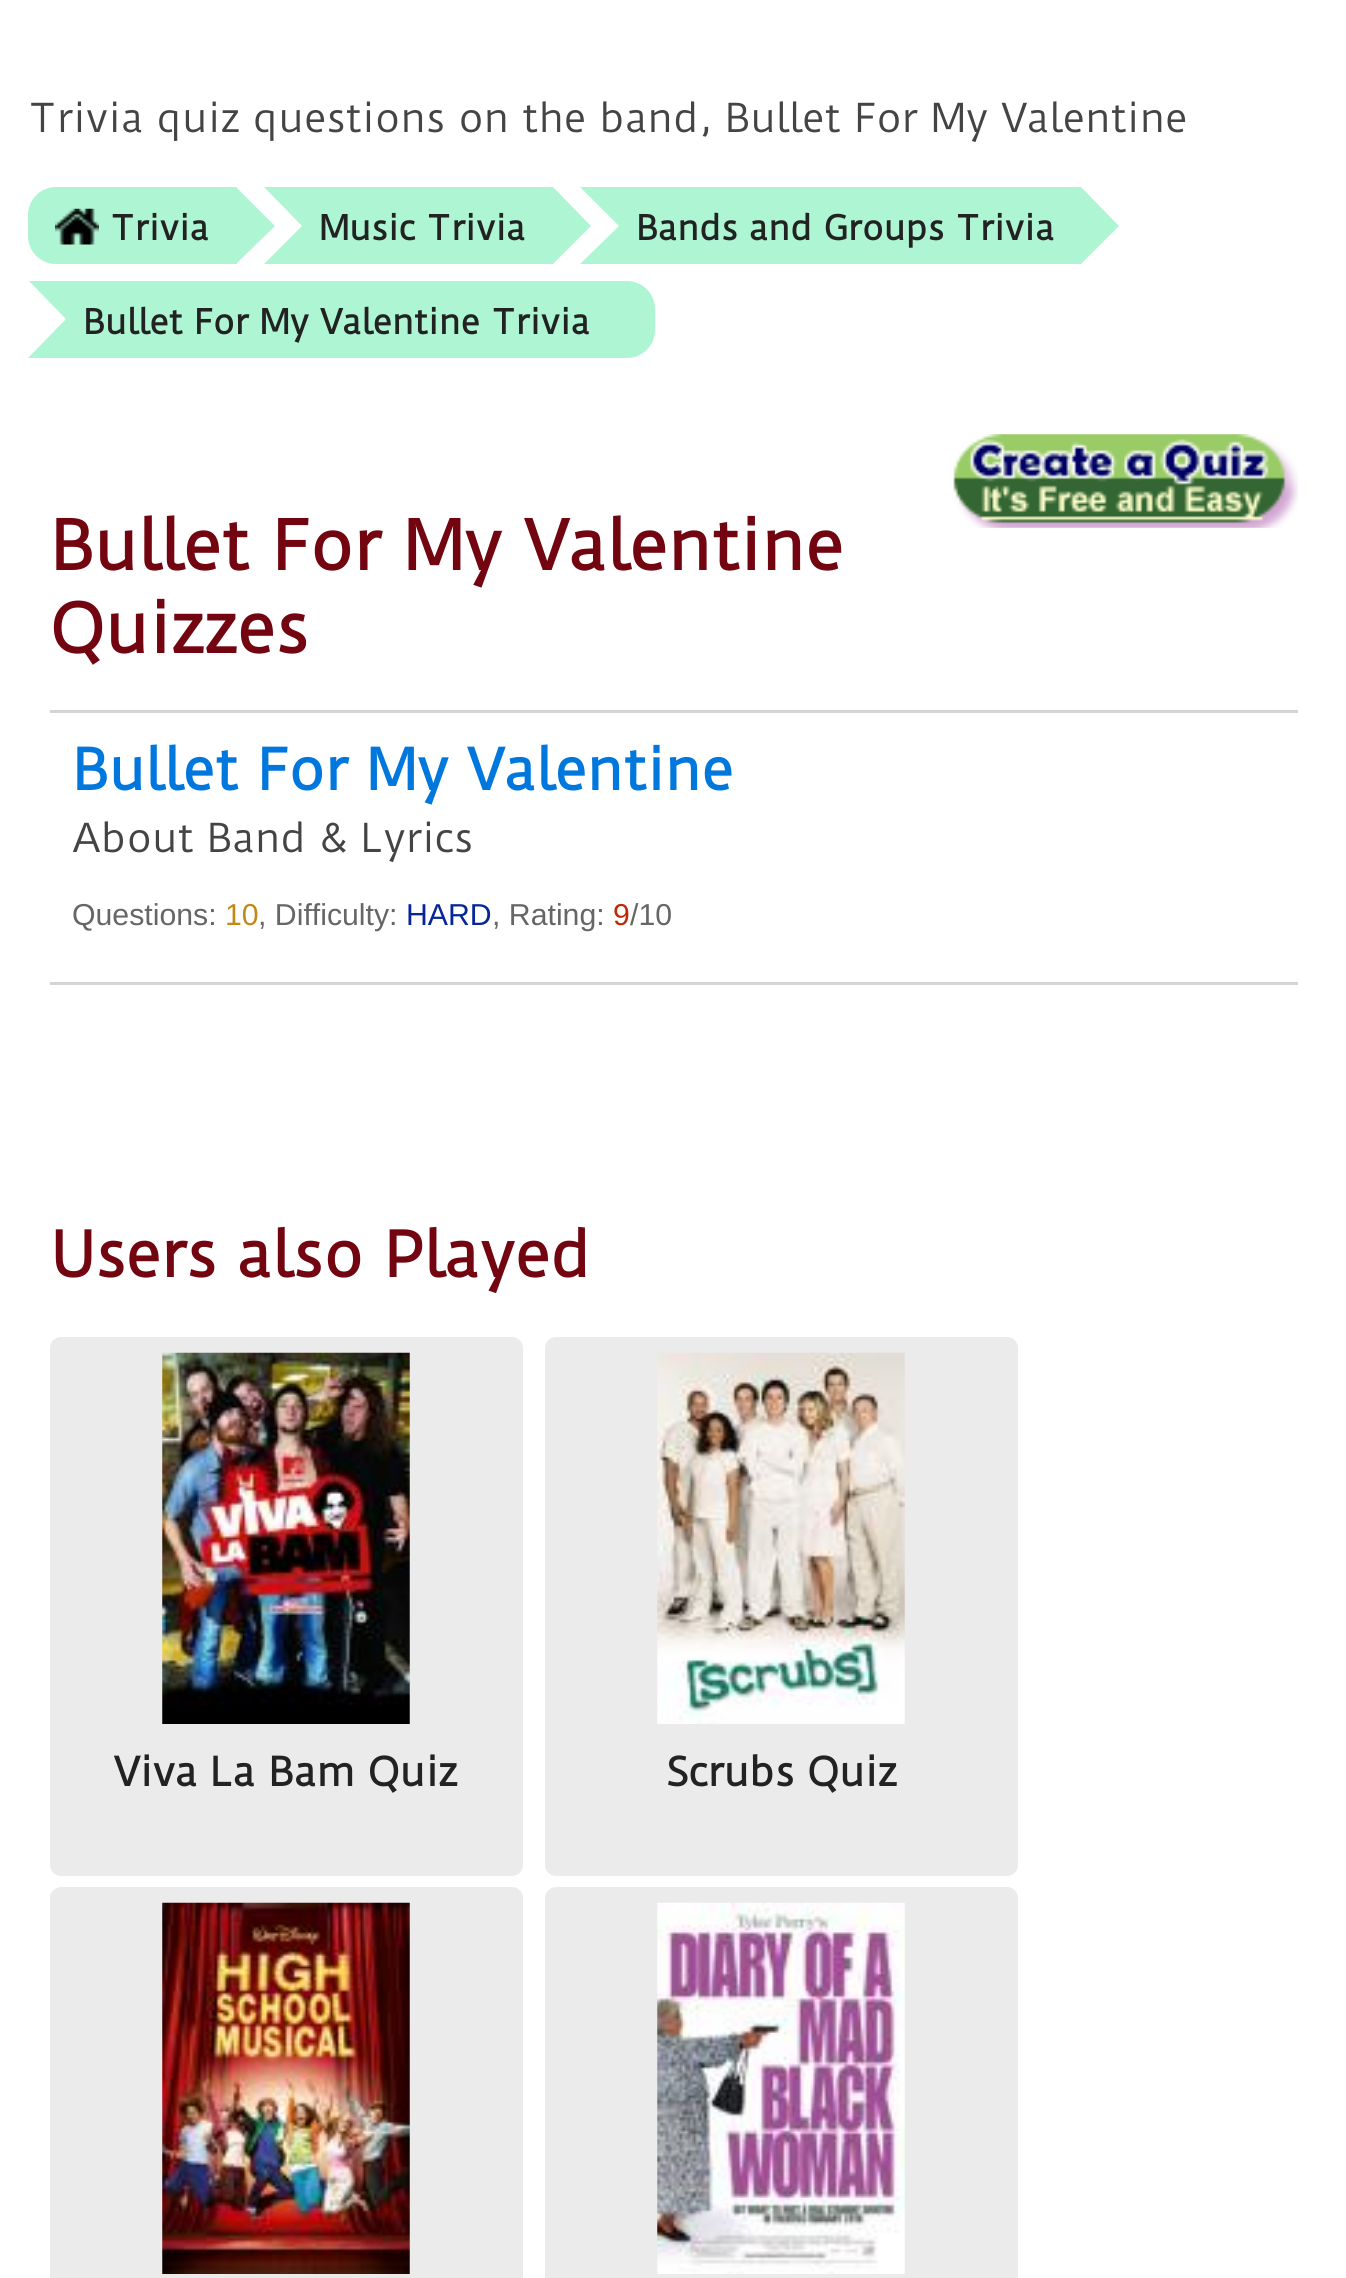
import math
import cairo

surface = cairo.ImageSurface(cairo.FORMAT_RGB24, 1346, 2278)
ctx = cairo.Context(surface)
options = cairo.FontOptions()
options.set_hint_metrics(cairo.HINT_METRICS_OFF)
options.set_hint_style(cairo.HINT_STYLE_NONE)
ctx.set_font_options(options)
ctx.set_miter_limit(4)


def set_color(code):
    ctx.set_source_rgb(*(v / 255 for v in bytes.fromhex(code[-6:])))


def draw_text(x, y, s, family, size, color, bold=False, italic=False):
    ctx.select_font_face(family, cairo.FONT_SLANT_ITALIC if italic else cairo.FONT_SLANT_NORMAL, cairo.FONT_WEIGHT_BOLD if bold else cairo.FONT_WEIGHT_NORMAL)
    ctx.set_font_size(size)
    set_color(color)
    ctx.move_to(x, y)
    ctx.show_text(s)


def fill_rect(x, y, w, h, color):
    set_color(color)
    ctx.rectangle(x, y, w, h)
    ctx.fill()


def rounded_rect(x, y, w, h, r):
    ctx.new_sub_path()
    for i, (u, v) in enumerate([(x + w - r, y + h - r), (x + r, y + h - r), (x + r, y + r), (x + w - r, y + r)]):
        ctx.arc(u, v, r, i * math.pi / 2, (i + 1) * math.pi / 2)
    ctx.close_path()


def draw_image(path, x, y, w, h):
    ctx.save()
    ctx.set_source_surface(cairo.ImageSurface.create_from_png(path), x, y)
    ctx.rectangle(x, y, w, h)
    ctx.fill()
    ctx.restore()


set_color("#ffffff")
ctx.paint()
draw_text(28, 132, "Trivia quiz questions on the band, Bullet For My Valentine", "Duru Sans", 38.5, "#444444")
set_color("#aef5d3")
ctx.new_path()
ctx.move_to(56, 187)
ctx.line_to(237, 187)
ctx.line_to(237, 264)
ctx.line_to(56, 264)
ctx.curve_to(40.5, 264, 28, 251.5, 28, 236)
ctx.line_to(28, 215)
ctx.curve_to(28, 199.5, 40.5, 187, 56, 187)
ctx.close_path()
ctx.fill()
draw_image("assets/img1.png", 55, 208, 44, 37)
draw_text(110, 240, "Trivia", "Duru Sans", 33, "#222222", bold=True)
fill_rect(264, 187, 289, 77, "#aef5d3")
set_color("#ffffff")
ctx.new_path()
ctx.move_to(264, 264)
ctx.line_to(264, 187)
ctx.line_to(302, 226)
ctx.close_path()
ctx.fill()
set_color("#aef5d3")
ctx.new_path()
ctx.move_to(236, 264)
ctx.line_to(236, 187)
ctx.line_to(275, 226)
ctx.close_path()
ctx.fill()
draw_text(319, 240, "Music Trivia", "Duru Sans", 33, "#222222", bold=True)
fill_rect(580, 187, 501, 77, "#aef5d3")
set_color("#ffffff")
ctx.new_path()
ctx.move_to(580, 264)
ctx.line_to(580, 187)
ctx.line_to(619, 226)
ctx.close_path()
ctx.fill()
set_color("#aef5d3")
ctx.new_path()
ctx.move_to(553, 264)
ctx.line_to(553, 187)
ctx.line_to(591, 226)
ctx.close_path()
ctx.fill()
draw_text(636, 240, "Bands and Groups Trivia", "Duru Sans", 33, "#222222", bold=True)
set_color("#aef5d3")
ctx.new_path()
ctx.move_to(1081, 264)
ctx.line_to(1081, 187)
ctx.line_to(1119, 226)
ctx.close_path()
ctx.fill()
ctx.new_path()
ctx.move_to(28, 281)
ctx.line_to(627, 281)
ctx.curve_to(642.5, 281, 655, 293.5, 655, 309)
ctx.line_to(655, 330)
ctx.curve_to(655, 345.5, 642.5, 358, 627, 358)
ctx.line_to(28, 358)
ctx.close_path()
ctx.fill()
set_color("#ffffff")
ctx.new_path()
ctx.move_to(28, 358)
ctx.line_to(28, 280)
ctx.line_to(66, 319)
ctx.close_path()
ctx.fill()
draw_text(83, 334, "Bullet For My Valentine Trivia", "Duru Sans", 33, "#222222", bold=True)
draw_image("assets/img2.png", 953, 434, 345, 94)
draw_text(50, 570, "Bullet For My Valentine", "Duru Sans", 66, "#720510", bold=True)
draw_text(50, 653, "Quizzes", "Duru Sans", 66, "#720510", bold=True)
fill_rect(50, 710, 1248, 3, "#d4d4d4")
fill_rect(50, 982, 1248, 3, "#d4d4d4")
draw_text(72, 790, "Bullet For My Valentine", "Duru Sans", 55, "#0077dd", bold=True)
draw_text(72, 852, "About Band & Lyrics", "Duru Sans", 38.5, "#444444")
draw_text(72, 925, "Questions:", "Liberation Sans", 30.25, "#666666")
draw_text(225, 925, "10", "Liberation Sans", 30.25, "#c28a14")
draw_text(258, 925, ", Difficulty:", "Liberation Sans", 30.25, "#666666")
draw_text(406, 925, "HARD", "Liberation Sans", 30.25, "#052696")
draw_text(492, 925, ", Rating:", "Liberation Sans", 30.25, "#666666")
draw_text(613, 925, "9", "Liberation Sans", 30.25, "#bb2b06")
draw_text(630, 925, "/10", "Liberation Sans", 30.25, "#666666")
draw_text(50, 1277, "Users also Played", "Duru Sans", 60.5, "#720510", bold=True)
set_color("#ebebeb")
rounded_rect(50, 1337, 473, 539, 11)
ctx.fill()
draw_image("assets/img3.png", 162, 1352, 248, 372)
draw_text(114, 1786, "Viva La Bam Quiz", "Duru Sans", 38.5, "#222222", bold=True)
set_color("#ebebeb")
rounded_rect(545, 1337, 473, 539, 11)
ctx.fill()
draw_image("assets/img4.png", 657, 1352, 248, 372)
draw_text(666, 1786, "Scrubs Quiz", "Duru Sans", 38.5, "#222222", bold=True)
set_color("#ebebeb")
rounded_rect(50, 1887, 473, 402, 11)
ctx.fill()
draw_image("assets/img5.png", 162, 1902, 248, 372)
rounded_rect(545, 1887, 473, 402, 11)
ctx.fill()
draw_image("assets/img6.png", 657, 1902, 248, 372)
surface.write_to_png("output.png")
